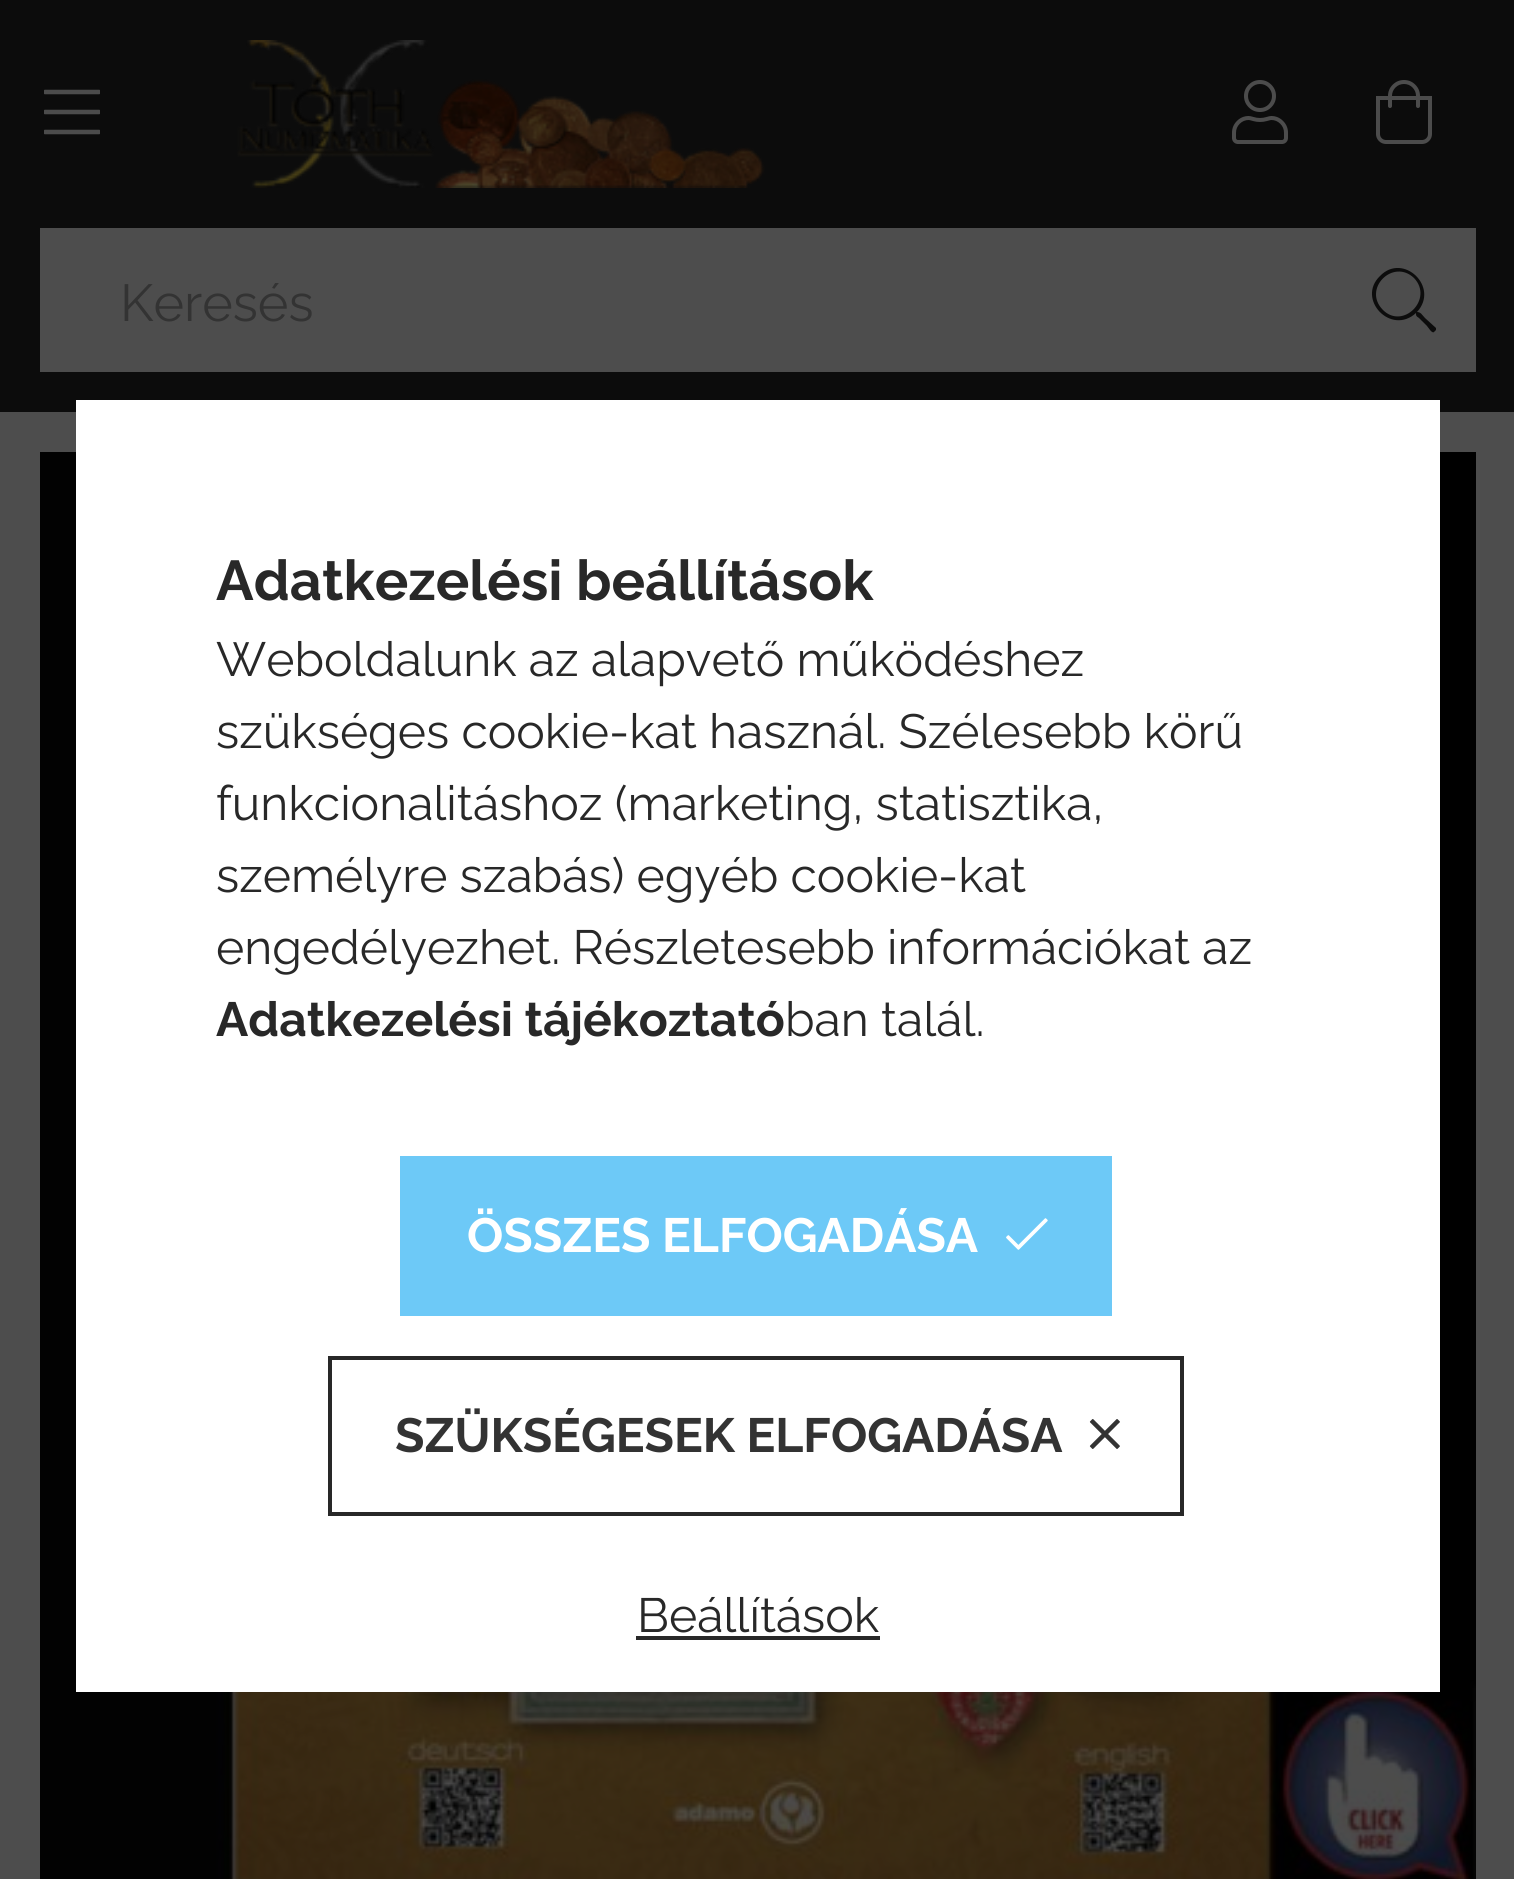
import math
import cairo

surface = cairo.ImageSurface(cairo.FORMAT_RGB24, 1514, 1879)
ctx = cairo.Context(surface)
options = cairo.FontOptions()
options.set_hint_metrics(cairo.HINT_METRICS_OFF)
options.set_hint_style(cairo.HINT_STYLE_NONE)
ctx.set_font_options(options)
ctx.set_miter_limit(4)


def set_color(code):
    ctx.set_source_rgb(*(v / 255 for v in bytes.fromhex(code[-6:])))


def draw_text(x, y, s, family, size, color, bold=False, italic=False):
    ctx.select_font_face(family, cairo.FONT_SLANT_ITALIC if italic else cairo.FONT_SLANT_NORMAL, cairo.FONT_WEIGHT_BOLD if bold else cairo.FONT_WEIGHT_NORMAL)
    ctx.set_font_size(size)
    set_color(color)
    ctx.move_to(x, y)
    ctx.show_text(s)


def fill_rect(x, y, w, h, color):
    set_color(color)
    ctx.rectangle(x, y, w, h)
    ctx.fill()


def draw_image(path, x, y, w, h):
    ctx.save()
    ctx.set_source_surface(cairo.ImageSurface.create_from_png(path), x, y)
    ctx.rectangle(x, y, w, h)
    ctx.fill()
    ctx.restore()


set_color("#4d4d4d")
ctx.paint()
fill_rect(0, 0, 1514, 412, "#0c0c0c")
draw_image("assets/img1.png", 44, 89, 56, 46)
draw_image("assets/img2.png", 237, 40, 528, 148)
draw_image("assets/img3.png", 1232, 80, 56, 64)
draw_image("assets/img4.png", 1376, 80, 56, 64)
fill_rect(40, 228, 1436, 144, "#4d4d4d")
draw_text(120, 321, "Keresés", "Raleway", 52, "#333333")
set_color("#0c0c0c")
ctx.new_path()
ctx.move_to(1436, 328)
ctx.line_to(1436, 330)
ctx.line_to(1434, 332)
ctx.curve_to(1432, 334, 1428, 327, 1427, 326)
ctx.line_to(1419, 318)
ctx.curve_to(1416, 316, 1416, 316, 1416, 313)
ctx.curve_to(1391, 336, 1356, 299, 1380, 276)
ctx.curve_to(1403, 252, 1440, 287, 1417, 312)
ctx.curve_to(1421, 312, 1422, 315, 1425, 318)
ctx.close_path()
ctx.move_to(1383, 310)
ctx.curve_to(1403, 330, 1434, 299, 1414, 278)
ctx.curve_to(1393, 258, 1362, 289, 1383, 310)
ctx.close_path()
ctx.fill()
draw_image("assets/img5.png", 40, 452, 1436, 1427)
fill_rect(76, 400, 1364, 1292, "#ffffff")
draw_text(216, 600, "Adatkezelési beállítások", "Raleway", 56, "#282828", bold=True)
draw_text(216, 676, "Weboldalunk az alapvető működéshez", "Raleway", 48, "#282828")
draw_text(216, 748, "szükséges cookie-kat használ. Szélesebb körű", "Raleway", 48, "#282828")
draw_text(216, 820, "funkcionalitáshoz (marketing, statisztika,", "Raleway", 48, "#282828")
draw_text(216, 892, "személyre szabás) egyéb cookie-kat", "Raleway", 48, "#282828")
draw_text(216, 964, "engedélyezhet. Részletesebb információkat az", "Raleway", 48, "#282828")
draw_text(216, 1036, "Adatkezelési tájékoztató", "Raleway", 48, "#282828", bold=True)
draw_text(785, 1036, "ban talál.", "Raleway", 48, "#282828")
fill_rect(400, 1156, 712, 160, "#6dc9f7")
draw_text(467, 1252, "ÖSSZES ELFOGADÁSA", "Raleway", 48, "#ffffff", bold=True)
draw_image("assets/img6.png", 1006, 1218, 42, 32)
ctx.rectangle(330, 1358, 852, 156)
set_color("#282828")
ctx.set_line_width(4)
ctx.stroke()
draw_text(395, 1452, "SZÜKSÉGESEK ELFOGADÁSA", "Raleway", 48, "#333333", bold=True)
draw_image("assets/img7.png", 1089, 1419, 31, 30)
draw_text(637, 1632, "Beállítások", "Raleway", 48, "#282828")
fill_rect(636, 1636, 244, 4, "#282828")
surface.write_to_png("output.png")
